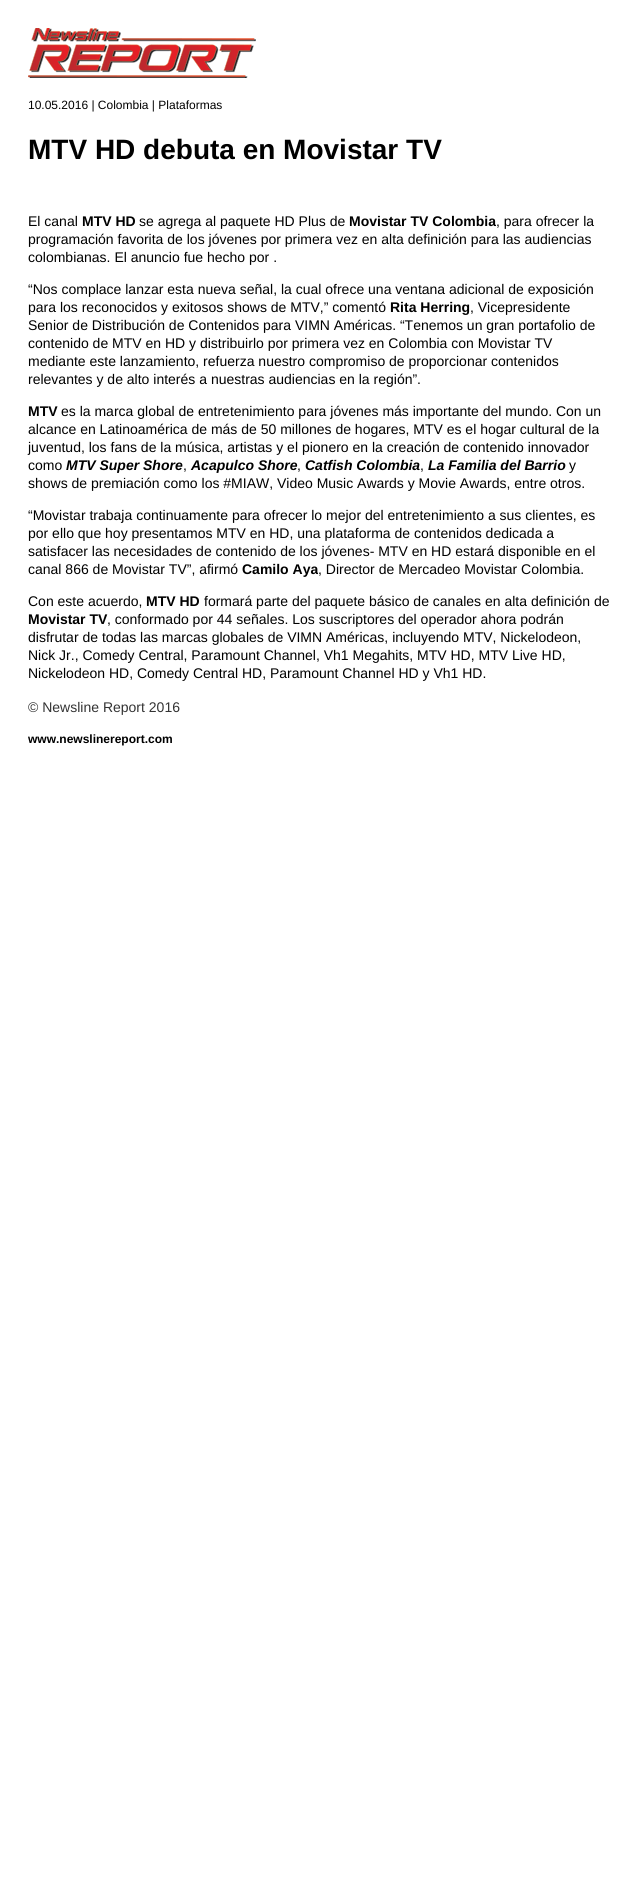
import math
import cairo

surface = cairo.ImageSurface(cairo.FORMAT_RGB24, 640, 1901)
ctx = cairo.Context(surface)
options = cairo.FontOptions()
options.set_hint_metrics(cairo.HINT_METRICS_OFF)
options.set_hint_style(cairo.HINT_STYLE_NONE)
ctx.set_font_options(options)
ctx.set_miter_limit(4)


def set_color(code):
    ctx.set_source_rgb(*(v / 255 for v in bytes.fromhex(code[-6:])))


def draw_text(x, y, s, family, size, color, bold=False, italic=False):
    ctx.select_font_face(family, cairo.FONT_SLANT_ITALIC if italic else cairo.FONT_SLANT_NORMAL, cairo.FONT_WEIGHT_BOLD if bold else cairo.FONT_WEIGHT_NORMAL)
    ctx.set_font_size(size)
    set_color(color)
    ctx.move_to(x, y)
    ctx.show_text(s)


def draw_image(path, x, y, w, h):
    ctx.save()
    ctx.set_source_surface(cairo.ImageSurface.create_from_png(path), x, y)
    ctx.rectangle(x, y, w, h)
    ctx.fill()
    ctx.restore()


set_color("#ffffff")
ctx.paint()
draw_image("assets/img1.png", 28, 28, 228, 50)
draw_text(28, 109, "10.05.2016 | Colombia | Plataformas", "Liberation Sans", 12, "#000000")
draw_text(28, 159, "MTV HD debuta en Movistar TV", "Liberation Sans", 28, "#000000", bold=True)
draw_text(28, 226, "El canal", "Liberation Sans", 14, "#000000")
draw_text(82, 226, "MTV HD", "Liberation Sans", 14, "#000000", bold=True)
draw_text(139, 226, "se agrega al paquete HD Plus de", "Liberation Sans", 14, "#000000")
draw_text(349, 226, "Movistar TV Colombia", "Liberation Sans", 14, "#000000", bold=True)
draw_text(496, 226, ", para ofrecer la", "Liberation Sans", 14, "#000000")
draw_text(28, 244, "programación favorita de los jóvenes por primera vez en alta definición para las audiencias", "Liberation Sans", 14, "#000000")
draw_text(28, 262, "colombianas. El anuncio fue hecho por .", "Liberation Sans", 14, "#000000")
draw_text(28, 294, "“Nos complace lanzar esta nueva señal, la cual ofrece una ventana adicional de exposición", "Liberation Sans", 14, "#000000")
draw_text(28, 312, "para los reconocidos y exitosos shows de MTV,” comentó", "Liberation Sans", 14, "#000000")
draw_text(390, 312, "Rita Herring", "Liberation Sans", 14, "#000000", bold=True)
draw_text(470, 312, ", Vicepresidente", "Liberation Sans", 14, "#000000")
draw_text(28, 330, "Senior de Distribución de Contenidos para VIMN Américas. “Tenemos un gran portafolio de", "Liberation Sans", 14, "#000000")
draw_text(28, 348, "contenido de MTV en HD y distribuirlo por primera vez en Colombia con Movistar TV", "Liberation Sans", 14, "#000000")
draw_text(28, 366, "mediante este lanzamiento, refuerza nuestro compromiso de proporcionar contenidos", "Liberation Sans", 14, "#000000")
draw_text(28, 384, "relevantes y de alto interés a nuestras audiencias en la región”.", "Liberation Sans", 14, "#000000")
draw_text(28, 416, "MTV", "Liberation Sans", 14, "#000000", bold=True)
draw_text(61, 416, "es la marca global de entretenimiento para jóvenes más importante del mundo. Con un", "Liberation Sans", 14, "#000000")
draw_text(28, 434, "alcance en Latinoamérica de más de 50 millones de hogares, MTV es el hogar cultural de la", "Liberation Sans", 14, "#000000")
draw_text(28, 452, "juventud, los fans de la música, artistas y el pionero en la creación de contenido innovador", "Liberation Sans", 14, "#000000")
draw_text(28, 470, "como", "Liberation Sans", 14, "#000000")
draw_text(66, 470, "MTV Super Shore", "Liberation Sans", 14, "#000000", bold=True, italic=True)
draw_text(183, 470, ",", "Liberation Sans", 14, "#000000")
draw_text(191, 470, "Acapulco Shore", "Liberation Sans", 14, "#000000", bold=True, italic=True)
draw_text(297, 470, ",", "Liberation Sans", 14, "#000000")
draw_text(305, 470, "Catfish Colombia", "Liberation Sans", 14, "#000000", bold=True, italic=True)
draw_text(420, 470, ",", "Liberation Sans", 14, "#000000")
draw_text(428, 470, "La Familia del Barrio", "Liberation Sans", 14, "#000000", bold=True, italic=True)
draw_text(569, 470, "y", "Liberation Sans", 14, "#000000")
draw_text(28, 488, "shows de premiación como los #MIAW, Video Music Awards y Movie Awards, entre otros.", "Liberation Sans", 14, "#000000")
draw_text(28, 520, "“Movistar trabaja continuamente para ofrecer lo mejor del entretenimiento a sus clientes, es", "Liberation Sans", 14, "#000000")
draw_text(28, 538, "por ello que hoy presentamos MTV en HD, una plataforma de contenidos dedicada a", "Liberation Sans", 14, "#000000")
draw_text(28, 556, "satisfacer las necesidades de contenido de los jóvenes- MTV en HD estará disponible en el", "Liberation Sans", 14, "#000000")
draw_text(28, 574, "canal 866 de Movistar TV”, afirmó", "Liberation Sans", 14, "#000000")
draw_text(242, 574, "Camilo Aya", "Liberation Sans", 14, "#000000", bold=True)
draw_text(318, 574, ", Director de Mercadeo Movistar Colombia.", "Liberation Sans", 14, "#000000")
draw_text(28, 606, "Con este acuerdo,", "Liberation Sans", 14, "#000000")
draw_text(146, 606, "MTV HD", "Liberation Sans", 14, "#000000", bold=True)
draw_text(204, 606, "formará parte del paquete básico de canales en alta definición de", "Liberation Sans", 14, "#000000")
draw_text(28, 624, "Movistar TV", "Liberation Sans", 14, "#000000", bold=True)
draw_text(107, 624, ", conformado por 44 señales. Los suscriptores del operador ahora podrán", "Liberation Sans", 14, "#000000")
draw_text(28, 642, "disfrutar de todas las marcas globales de VIMN Américas, incluyendo MTV, Nickelodeon,", "Liberation Sans", 14, "#000000")
draw_text(28, 660, "Nick Jr., Comedy Central, Paramount Channel, Vh1 Megahits, MTV HD, MTV Live HD,", "Liberation Sans", 14, "#000000")
draw_text(28, 678, "Nickelodeon HD, Comedy Central HD, Paramount Channel HD y Vh1 HD.", "Liberation Sans", 14, "#000000")
draw_text(28, 712, "© Newsline Report 2016", "Liberation Sans", 14, "#333333")
draw_text(28, 743, "www.newslinereport.com", "Liberation Sans", 12, "#000000", bold=True)
surface.write_to_png("output.png")
